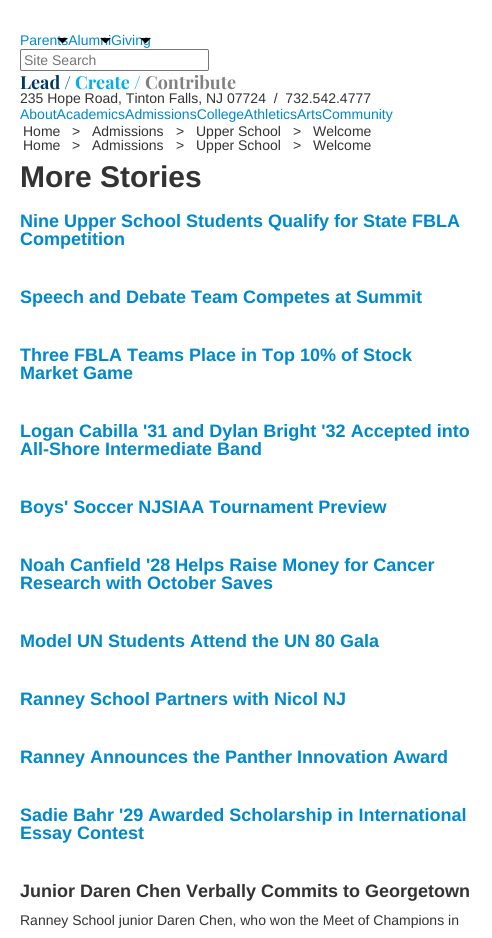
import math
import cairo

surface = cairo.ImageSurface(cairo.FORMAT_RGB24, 492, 938)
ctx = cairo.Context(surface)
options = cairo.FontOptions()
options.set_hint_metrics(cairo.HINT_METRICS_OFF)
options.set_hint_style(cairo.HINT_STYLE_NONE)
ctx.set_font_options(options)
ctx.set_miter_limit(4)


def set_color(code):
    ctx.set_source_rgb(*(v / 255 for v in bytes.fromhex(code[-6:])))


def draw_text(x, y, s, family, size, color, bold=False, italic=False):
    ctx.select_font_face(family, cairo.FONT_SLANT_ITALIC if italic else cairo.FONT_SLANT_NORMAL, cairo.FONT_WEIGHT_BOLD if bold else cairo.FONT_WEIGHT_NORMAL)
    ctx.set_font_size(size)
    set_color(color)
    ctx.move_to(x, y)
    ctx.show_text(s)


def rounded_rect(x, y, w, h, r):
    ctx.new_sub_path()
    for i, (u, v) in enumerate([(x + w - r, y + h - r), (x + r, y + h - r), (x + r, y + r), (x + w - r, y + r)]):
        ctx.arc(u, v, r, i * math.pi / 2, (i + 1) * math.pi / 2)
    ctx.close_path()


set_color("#ffffff")
ctx.paint()
draw_text(20, 45, "ParentsAlumniGiving", "Liberation Sans", 14, "#0088cc")
set_color("#000000")
ctx.new_path()
ctx.move_to(57, 38)
ctx.line_to(68, 38)
ctx.line_to(63, 43)
ctx.line_to(62, 43)
ctx.close_path()
ctx.move_to(100, 38)
ctx.line_to(111, 38)
ctx.line_to(106, 43)
ctx.line_to(105, 43)
ctx.close_path()
ctx.fill()
ctx.new_path()
ctx.move_to(140, 38)
ctx.line_to(151, 38)
ctx.line_to(146, 43)
ctx.line_to(145, 43)
ctx.close_path()
ctx.fill()
rounded_rect(20.5, 49.5, 188, 21, 1.5)
set_color("#767676")
ctx.set_line_width(1)
ctx.stroke()
draw_text(24, 65, "Site Search", "Liberation Sans", 14, "#757575")
draw_text(20, 89, "Lead /", "Playfair Display", 18, "#003767", bold=True)
draw_text(75, 89, "Create /", "Playfair Display", 18, "#00adee", bold=True)
draw_text(145, 89, "Contribute", "Playfair Display", 18, "#808080", bold=True)
draw_text(20, 103, "235 Hope Road, Tinton Falls, NJ 07724  /  732.542.4777", "Liberation Sans", 14, "#333333")
draw_text(20, 119, "AboutAcademicsAdmissionsCollegeAthleticsArtsCommunity", "Liberation Sans", 14, "#0088cc")
draw_text(23, 136, "Home", "Liberation Sans", 14, "#333333")
draw_text(72, 136, ">", "Liberation Sans", 14, "#333333")
draw_text(92, 136, "Admissions", "Liberation Sans", 14, "#333333")
draw_text(176, 136, ">", "Liberation Sans", 14, "#333333")
draw_text(196, 136, "Upper School", "Liberation Sans", 14, "#333333")
draw_text(293, 136, ">", "Liberation Sans", 14, "#333333")
draw_text(313, 136, "Welcome", "Liberation Sans", 14, "#333333")
draw_text(23, 150, "Home", "Liberation Sans", 14, "#333333")
draw_text(72, 150, ">", "Liberation Sans", 14, "#333333")
draw_text(92, 150, "Admissions", "Liberation Sans", 14, "#333333")
draw_text(176, 150, ">", "Liberation Sans", 14, "#333333")
draw_text(196, 150, "Upper School", "Liberation Sans", 14, "#333333")
draw_text(293, 150, ">", "Liberation Sans", 14, "#333333")
draw_text(313, 150, "Welcome", "Liberation Sans", 14, "#333333")
draw_text(20, 187, "More Stories", "Liberation Sans", 30, "#333333", bold=True)
draw_text(20, 227, "Nine Upper School Students Qualify for State FBLA", "Liberation Sans", 18, "#0088cc", bold=True)
draw_text(20, 245, "Competition", "Liberation Sans", 18, "#0088cc", bold=True)
draw_text(20, 303, "Speech and Debate Team Competes at Summit", "Liberation Sans", 18, "#0088cc", bold=True)
draw_text(20, 361, "Three FBLA Teams Place in Top 10% of Stock", "Liberation Sans", 18, "#0088cc", bold=True)
draw_text(20, 379, "Market Game", "Liberation Sans", 18, "#0088cc", bold=True)
draw_text(20, 437, "Logan Cabilla '31 and Dylan Bright '32 Accepted into", "Liberation Sans", 18, "#0088cc", bold=True)
draw_text(20, 455, "All-Shore Intermediate Band", "Liberation Sans", 18, "#0088cc", bold=True)
draw_text(20, 513, "Boys' Soccer NJSIAA Tournament Preview", "Liberation Sans", 18, "#0088cc", bold=True)
draw_text(20, 571, "Noah Canfield '28 Helps Raise Money for Cancer", "Liberation Sans", 18, "#0088cc", bold=True)
draw_text(20, 589, "Research with October Saves", "Liberation Sans", 18, "#0088cc", bold=True)
draw_text(20, 647, "Model UN Students Attend the UN 80 Gala", "Liberation Sans", 18, "#0088cc", bold=True)
draw_text(20, 705, "Ranney School Partners with Nicol NJ", "Liberation Sans", 18, "#0088cc", bold=True)
draw_text(20, 763, "Ranney Announces the Panther Innovation Award", "Liberation Sans", 18, "#0088cc", bold=True)
draw_text(20, 821, "Sadie Bahr '29 Awarded Scholarship in International", "Liberation Sans", 18, "#0088cc", bold=True)
draw_text(20, 839, "Essay Contest", "Liberation Sans", 18, "#0088cc", bold=True)
draw_text(20, 897, "Junior Daren Chen Verbally Commits to Georgetown", "Liberation Sans", 18, "#333333", bold=True)
draw_text(20, 925, "Ranney School junior Daren Chen, who won the Meet of Champions in", "Liberation Sans", 14, "#333333")
surface.write_to_png("output.png")
